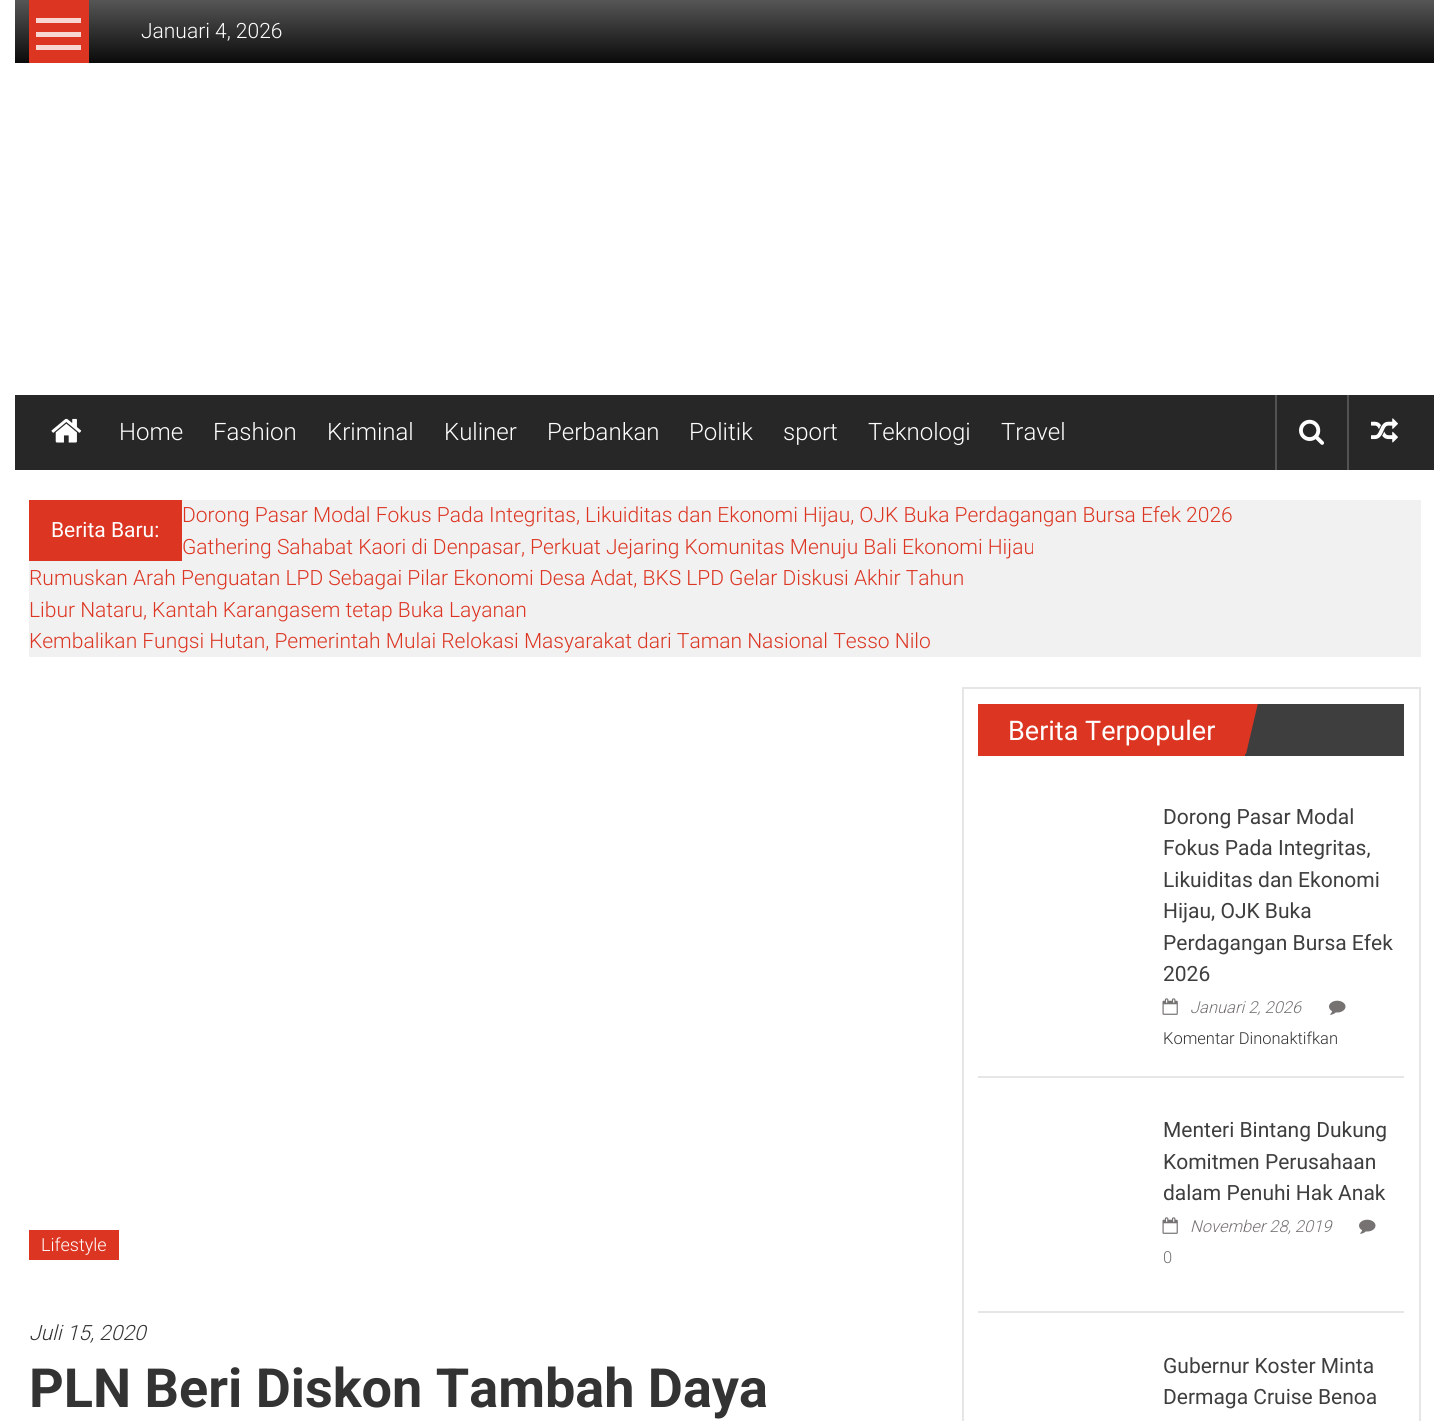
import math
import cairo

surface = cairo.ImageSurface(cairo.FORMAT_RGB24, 1448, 1421)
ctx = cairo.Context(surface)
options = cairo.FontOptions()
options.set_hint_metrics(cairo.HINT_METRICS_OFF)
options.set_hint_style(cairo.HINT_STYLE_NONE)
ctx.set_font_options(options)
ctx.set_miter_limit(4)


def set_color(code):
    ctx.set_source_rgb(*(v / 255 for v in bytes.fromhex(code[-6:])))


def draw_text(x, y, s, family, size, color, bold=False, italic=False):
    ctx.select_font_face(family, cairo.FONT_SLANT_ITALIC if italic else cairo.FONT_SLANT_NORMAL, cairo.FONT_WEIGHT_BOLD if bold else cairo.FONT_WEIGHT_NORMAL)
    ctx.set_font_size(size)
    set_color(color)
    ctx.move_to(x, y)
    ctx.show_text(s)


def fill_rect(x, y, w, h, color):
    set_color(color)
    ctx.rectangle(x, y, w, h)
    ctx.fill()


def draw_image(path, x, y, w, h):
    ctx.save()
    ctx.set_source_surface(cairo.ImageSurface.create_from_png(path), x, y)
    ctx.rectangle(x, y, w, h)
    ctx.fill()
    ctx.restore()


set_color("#ffffff")
ctx.paint()
gradient = cairo.LinearGradient(725, 0, 725, 63)
gradient.add_color_stop_rgba(0, 0.337, 0.337, 0.337, 1)
gradient.add_color_stop_rgba(1, 0.039, 0.039, 0.039, 1)
ctx.set_source(gradient)
ctx.rectangle(15, 0, 1419, 63)
ctx.fill()
fill_rect(29, 0, 60, 63, "#dc3522")
fill_rect(36, 18, 45, 5, "#f8d7d3")
fill_rect(36, 32, 45, 5, "#f8d7d3")
fill_rect(36, 45, 45, 5, "#f8d7d3")
draw_text(141, 38, "Januari 4, 2026", "Roboto Light", 21, "#ffffff")
fill_rect(15, 395, 1419, 75, "#272727")
draw_image("assets/img1.png", 51, 418, 31, 25)
draw_text(119, 440, "Home", "Roboto Light", 24, "#ffffff")
draw_text(213, 440, "Fashion", "Roboto Light", 24, "#ffffff")
draw_text(327, 440, "Kriminal", "Roboto Light", 24, "#ffffff")
draw_text(444, 440, "Kuliner", "Roboto Light", 24, "#ffffff")
draw_text(547, 440, "Perbankan", "Roboto Light", 24, "#ffffff")
draw_text(689, 440, "Politik", "Roboto Light", 24, "#ffffff")
draw_text(783, 440, "sport", "Roboto Light", 24, "#ffffff")
draw_text(868, 440, "Teknologi", "Roboto Light", 24, "#ffffff")
draw_text(1001, 440, "Travel", "Roboto Light", 24, "#ffffff")
fill_rect(1275, 395, 2, 75, "#525252")
draw_image("assets/img2.png", 1299, 419, 25, 26)
fill_rect(1347, 395, 2, 75, "#525252")
draw_image("assets/img3.png", 1371, 418, 27, 25)
fill_rect(29, 500, 1392, 157, "#f1f1f1")
draw_text(182, 522, "Dorong Pasar Modal Fokus Pada Integritas, Likuiditas dan Ekonomi Hijau, OJK Buka Perdagangan Bursa Efek 2026", "Roboto Light", 21, "#dc3522")
draw_text(182, 554, "Gathering Sahabat Kaori di Denpasar, Perkuat Jejaring Komunitas Menuju Bali Ekonomi Hijau", "Roboto Light", 21, "#dc3522")
draw_text(29, 585, "Rumuskan Arah Penguatan LPD Sebagai Pilar Ekonomi Desa Adat, BKS LPD Gelar Diskusi Akhir Tahun", "Roboto Light", 21, "#dc3522")
draw_text(29, 617, "Libur Nataru, Kantah Karangasem tetap Buka Layanan", "Roboto Light", 21, "#dc3522")
draw_text(29, 648, "Kembalikan Fungsi Hutan, Pemerintah Mulai Relokasi Masyarakat dari Taman Nasional Tesso Nilo", "Roboto Light", 21, "#dc3522")
fill_rect(29, 500, 153, 61, "#dc3522")
draw_text(51, 537, "Berita Baru:", "Roboto", 21, "#ffffff")
fill_rect(29, 1230, 90, 30, "#dc3522")
draw_text(41, 1251, "Lifestyle", "Roboto Light", 18, "#ffffff")
draw_text(29, 1340, "Juli 15, 2020", "Roboto Light", 21, "#333333", italic=True)
draw_text(29, 1407, "PLN Beri Diskon Tambah Daya", "Roboto", 54, "#333333", bold=True)
ctx.rectangle(963, 688, 457, 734)
set_color("#e6e6e6")
ctx.stroke()
fill_rect(1245, 704, 159, 52, "#3e3e3e")
fill_rect(978, 704, 267, 52, "#dc3522")
ctx.save()
ctx.rectangle(978, 704, 426, 52)
ctx.clip()
ctx.new_path()
ctx.move_to(1258, 703)
ctx.line_to(1246, 754)
ctx.line_to(1195, 742)
ctx.line_to(1206, 691)
ctx.close_path()
ctx.fill()
ctx.restore()
draw_text(1008, 740, "Berita Terpopuler", "Roboto", 27, "#ffffff")
fill_rect(978, 1076, 426, 2, "#e6e6e6")
draw_text(1163, 824, "Dorong Pasar Modal", "Roboto", 21, "#3e3e3e")
draw_text(1163, 855, "Fokus Pada Integritas,", "Roboto", 21, "#3e3e3e")
draw_text(1163, 887, "Likuiditas dan Ekonomi", "Roboto", 21, "#3e3e3e")
draw_text(1163, 918, "Hijau, OJK Buka", "Roboto", 21, "#3e3e3e")
draw_text(1163, 950, "Perdagangan Bursa Efek", "Roboto", 21, "#3e3e3e")
draw_text(1163, 981, "2026", "Roboto", 21, "#3e3e3e")
draw_image("assets/img4.png", 1162, 998, 16, 17)
draw_text(1190, 1013, "Januari 2, 2026", "Roboto Light", 16.5, "#767272", italic=True)
draw_image("assets/img5.png", 1329, 1000, 17, 15)
draw_text(1163, 1044, "Komentar Dinonaktifkan", "Roboto Light", 16.5, "#333333")
fill_rect(978, 1311, 426, 2, "#e6e6e6")
draw_text(1163, 1137, "Menteri Bintang Dukung", "Roboto", 21, "#3e3e3e")
draw_text(1163, 1169, "Komitmen Perusahaan", "Roboto", 21, "#3e3e3e")
draw_text(1163, 1200, "dalam Penuhi Hak Anak", "Roboto", 21, "#3e3e3e")
draw_image("assets/img4.png", 1162, 1217, 16, 17)
draw_text(1190, 1232, "November 28, 2019", "Roboto Light", 16.5, "#767272", italic=True)
draw_image("assets/img5.png", 1359, 1219, 17, 15)
draw_text(1163, 1263, "0", "Roboto Light", 16.5, "#767272")
draw_text(1163, 1373, "Gubernur Koster Minta", "Roboto", 21, "#3e3e3e")
draw_text(1163, 1404, "Dermaga Cruise Benoa", "Roboto", 21, "#3e3e3e")
surface.write_to_png("output.png")
